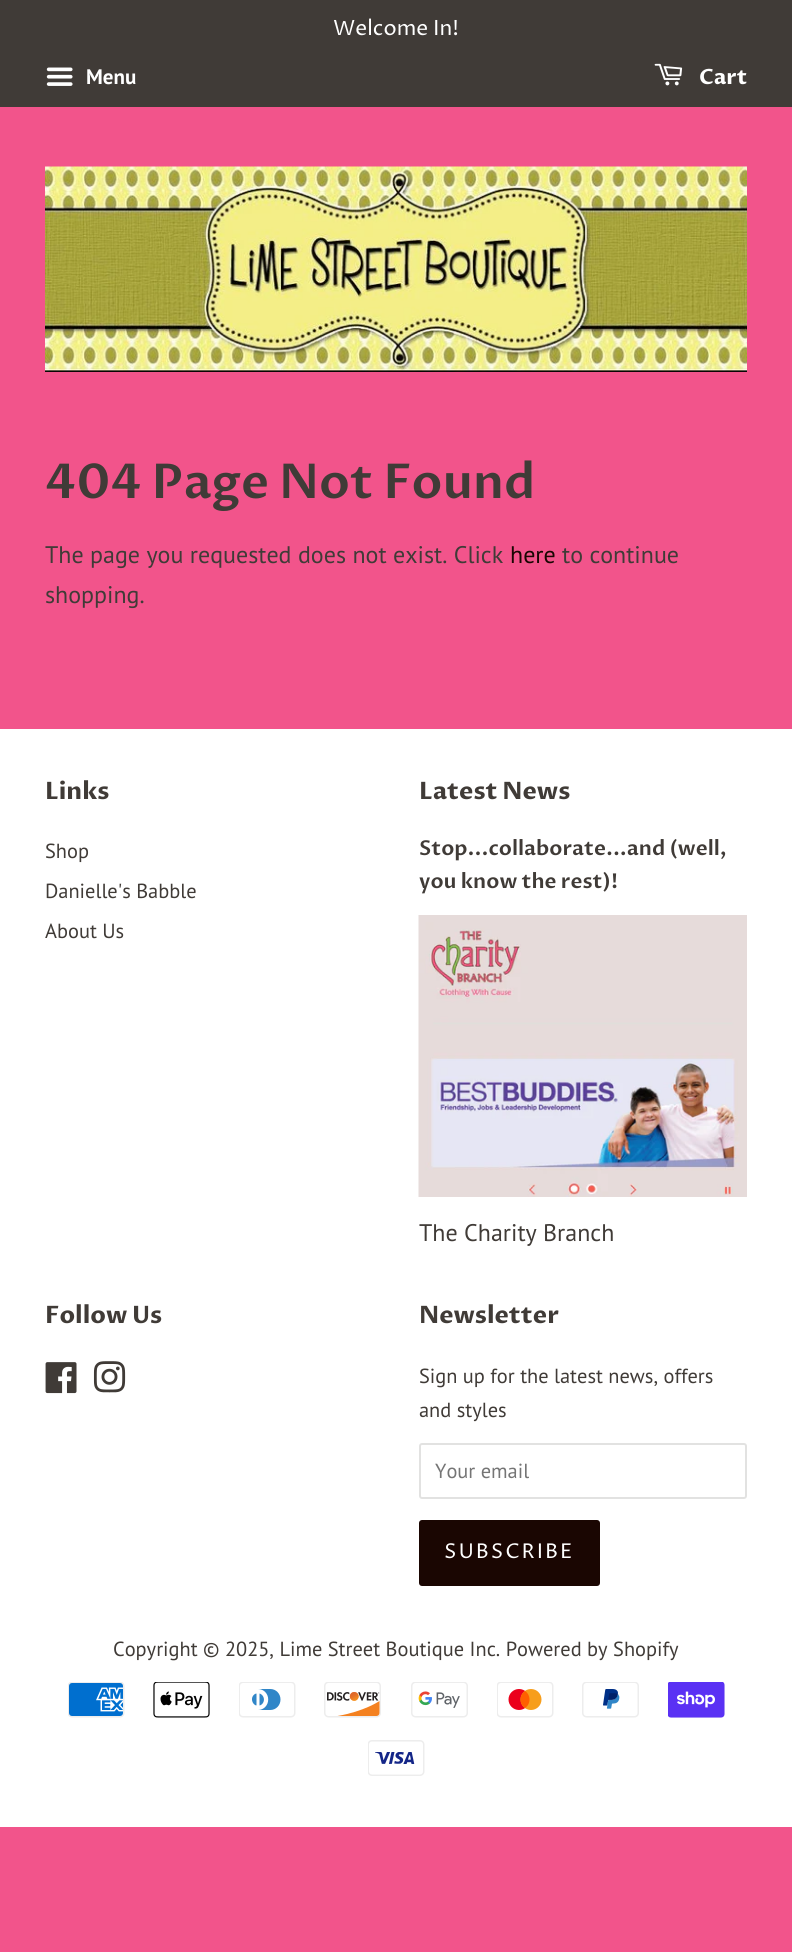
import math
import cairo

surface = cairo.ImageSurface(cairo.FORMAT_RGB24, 792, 1952)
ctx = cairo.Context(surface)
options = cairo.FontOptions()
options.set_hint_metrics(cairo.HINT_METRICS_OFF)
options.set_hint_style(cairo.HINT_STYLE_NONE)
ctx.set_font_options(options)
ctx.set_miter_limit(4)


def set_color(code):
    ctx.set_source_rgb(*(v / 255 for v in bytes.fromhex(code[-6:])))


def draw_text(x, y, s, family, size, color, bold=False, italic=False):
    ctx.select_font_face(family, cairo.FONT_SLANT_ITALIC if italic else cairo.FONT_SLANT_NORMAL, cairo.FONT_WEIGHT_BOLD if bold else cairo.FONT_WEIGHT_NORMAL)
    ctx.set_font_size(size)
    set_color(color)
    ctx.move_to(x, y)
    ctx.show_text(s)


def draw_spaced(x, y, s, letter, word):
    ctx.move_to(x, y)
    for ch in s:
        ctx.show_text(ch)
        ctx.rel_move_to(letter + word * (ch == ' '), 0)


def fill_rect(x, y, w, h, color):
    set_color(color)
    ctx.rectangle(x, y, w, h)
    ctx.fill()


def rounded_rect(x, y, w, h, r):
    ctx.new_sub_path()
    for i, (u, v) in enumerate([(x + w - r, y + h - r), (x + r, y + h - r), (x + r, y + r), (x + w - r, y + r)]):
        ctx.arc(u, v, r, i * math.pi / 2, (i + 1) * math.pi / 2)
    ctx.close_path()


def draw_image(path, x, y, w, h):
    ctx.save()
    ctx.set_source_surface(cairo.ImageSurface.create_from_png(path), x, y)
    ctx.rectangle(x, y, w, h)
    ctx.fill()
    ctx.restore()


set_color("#f2548b")
ctx.paint()
fill_rect(0, 0, 792, 107, "#403b37")
draw_text(333, 35, "Welcome In!", "Proza Libre", 21, "#ffffff")
draw_image("assets/img1.png", 46, 67, 27, 19)
draw_text(86, 84, "Menu", "PT Sans", 21, "#ffffff", bold=True)
draw_image("assets/img2.png", 654, 63, 29, 23)
draw_text(699, 84, "Cart", "Proza Libre", 21, "#ffffff", bold=True)
draw_image("assets/img3.png", 45, 166, 702, 206)
draw_text(45, 498, "404 Page Not Found", "Proza Libre SemiBold", 48, "#403b37")
draw_text(45, 563, "The page you requested does not exist. Click", "PT Sans", 24, "#403b37")
draw_text(510, 563, "here", "PT Sans", 24, "#1a0602")
draw_text(562, 563, "to continue", "PT Sans", 24, "#403b37")
draw_text(45, 603, "shopping.", "PT Sans", 24, "#403b37")
fill_rect(0, 729, 792, 1098, "#ffffff")
draw_text(45, 799, "Links", "Proza Libre", 24, "#403b37", bold=True)
draw_text(45, 858, "Shop", "PT Sans", 20.4, "#403b37")
draw_text(45, 898, "Danielle's Babble", "PT Sans", 20.4, "#403b37")
draw_text(45, 938, "About Us", "PT Sans", 20.4, "#403b37")
draw_text(419, 799, "Latest News", "Proza Libre", 24, "#403b37", bold=True)
draw_text(419, 855, "Stop...collaborate...and (well,", "Proza Libre SemiBold", 20.4, "#403b37")
draw_text(419, 888, "you know the rest)!", "Proza Libre SemiBold", 20.4, "#403b37")
draw_image("assets/img4.png", 418, 915, 329, 282)
draw_text(419, 1241, "The Charity Branch", "PT Sans", 24, "#403b37")
draw_text(45, 1323, "Follow Us", "Proza Libre", 24, "#403b37", bold=True)
draw_image("assets/img5.png", 45, 1362, 32, 32)
draw_image("assets/img6.png", 93, 1361, 33, 32)
draw_text(419, 1323, "Newsletter", "Proza Libre", 24, "#403b37", bold=True)
draw_text(419, 1383, "Sign up for the latest news, offers", "PT Sans", 20.4, "#403b37")
draw_text(419, 1417, "and styles", "PT Sans", 20.4, "#403b37")
rounded_rect(420, 1444, 326, 54, 2)
set_color("#e2e2e1")
ctx.stroke()
draw_text(435, 1478, "Your email", "PT Sans", 20.4, "#757575")
set_color("#1a0602")
rounded_rect(419, 1520, 181, 66, 3)
ctx.fill()
ctx.select_font_face("Proza Libre")
set_color("#ffffff")
draw_spaced(444, 1558, "SUBSCRIBE", 2, 0)
draw_text(113, 1656, "Copyright © 2025, Lime Street Boutique Inc. Powered by Shopify", "PT Sans", 20.4, "#403b37")
draw_image("assets/img7.png", 68, 1682, 57, 36)
draw_image("assets/img8.png", 153, 1682, 57, 36)
draw_image("assets/img9.png", 239, 1682, 57, 36)
draw_image("assets/img10.png", 324, 1682, 57, 36)
draw_image("assets/img11.png", 411, 1682, 57, 36)
draw_image("assets/img12.png", 497, 1682, 57, 36)
draw_image("assets/img13.png", 582, 1682, 57, 36)
draw_image("assets/img14.png", 668, 1682, 57, 36)
draw_image("assets/img15.png", 368, 1740, 57, 36)
surface.write_to_png("output.png")
